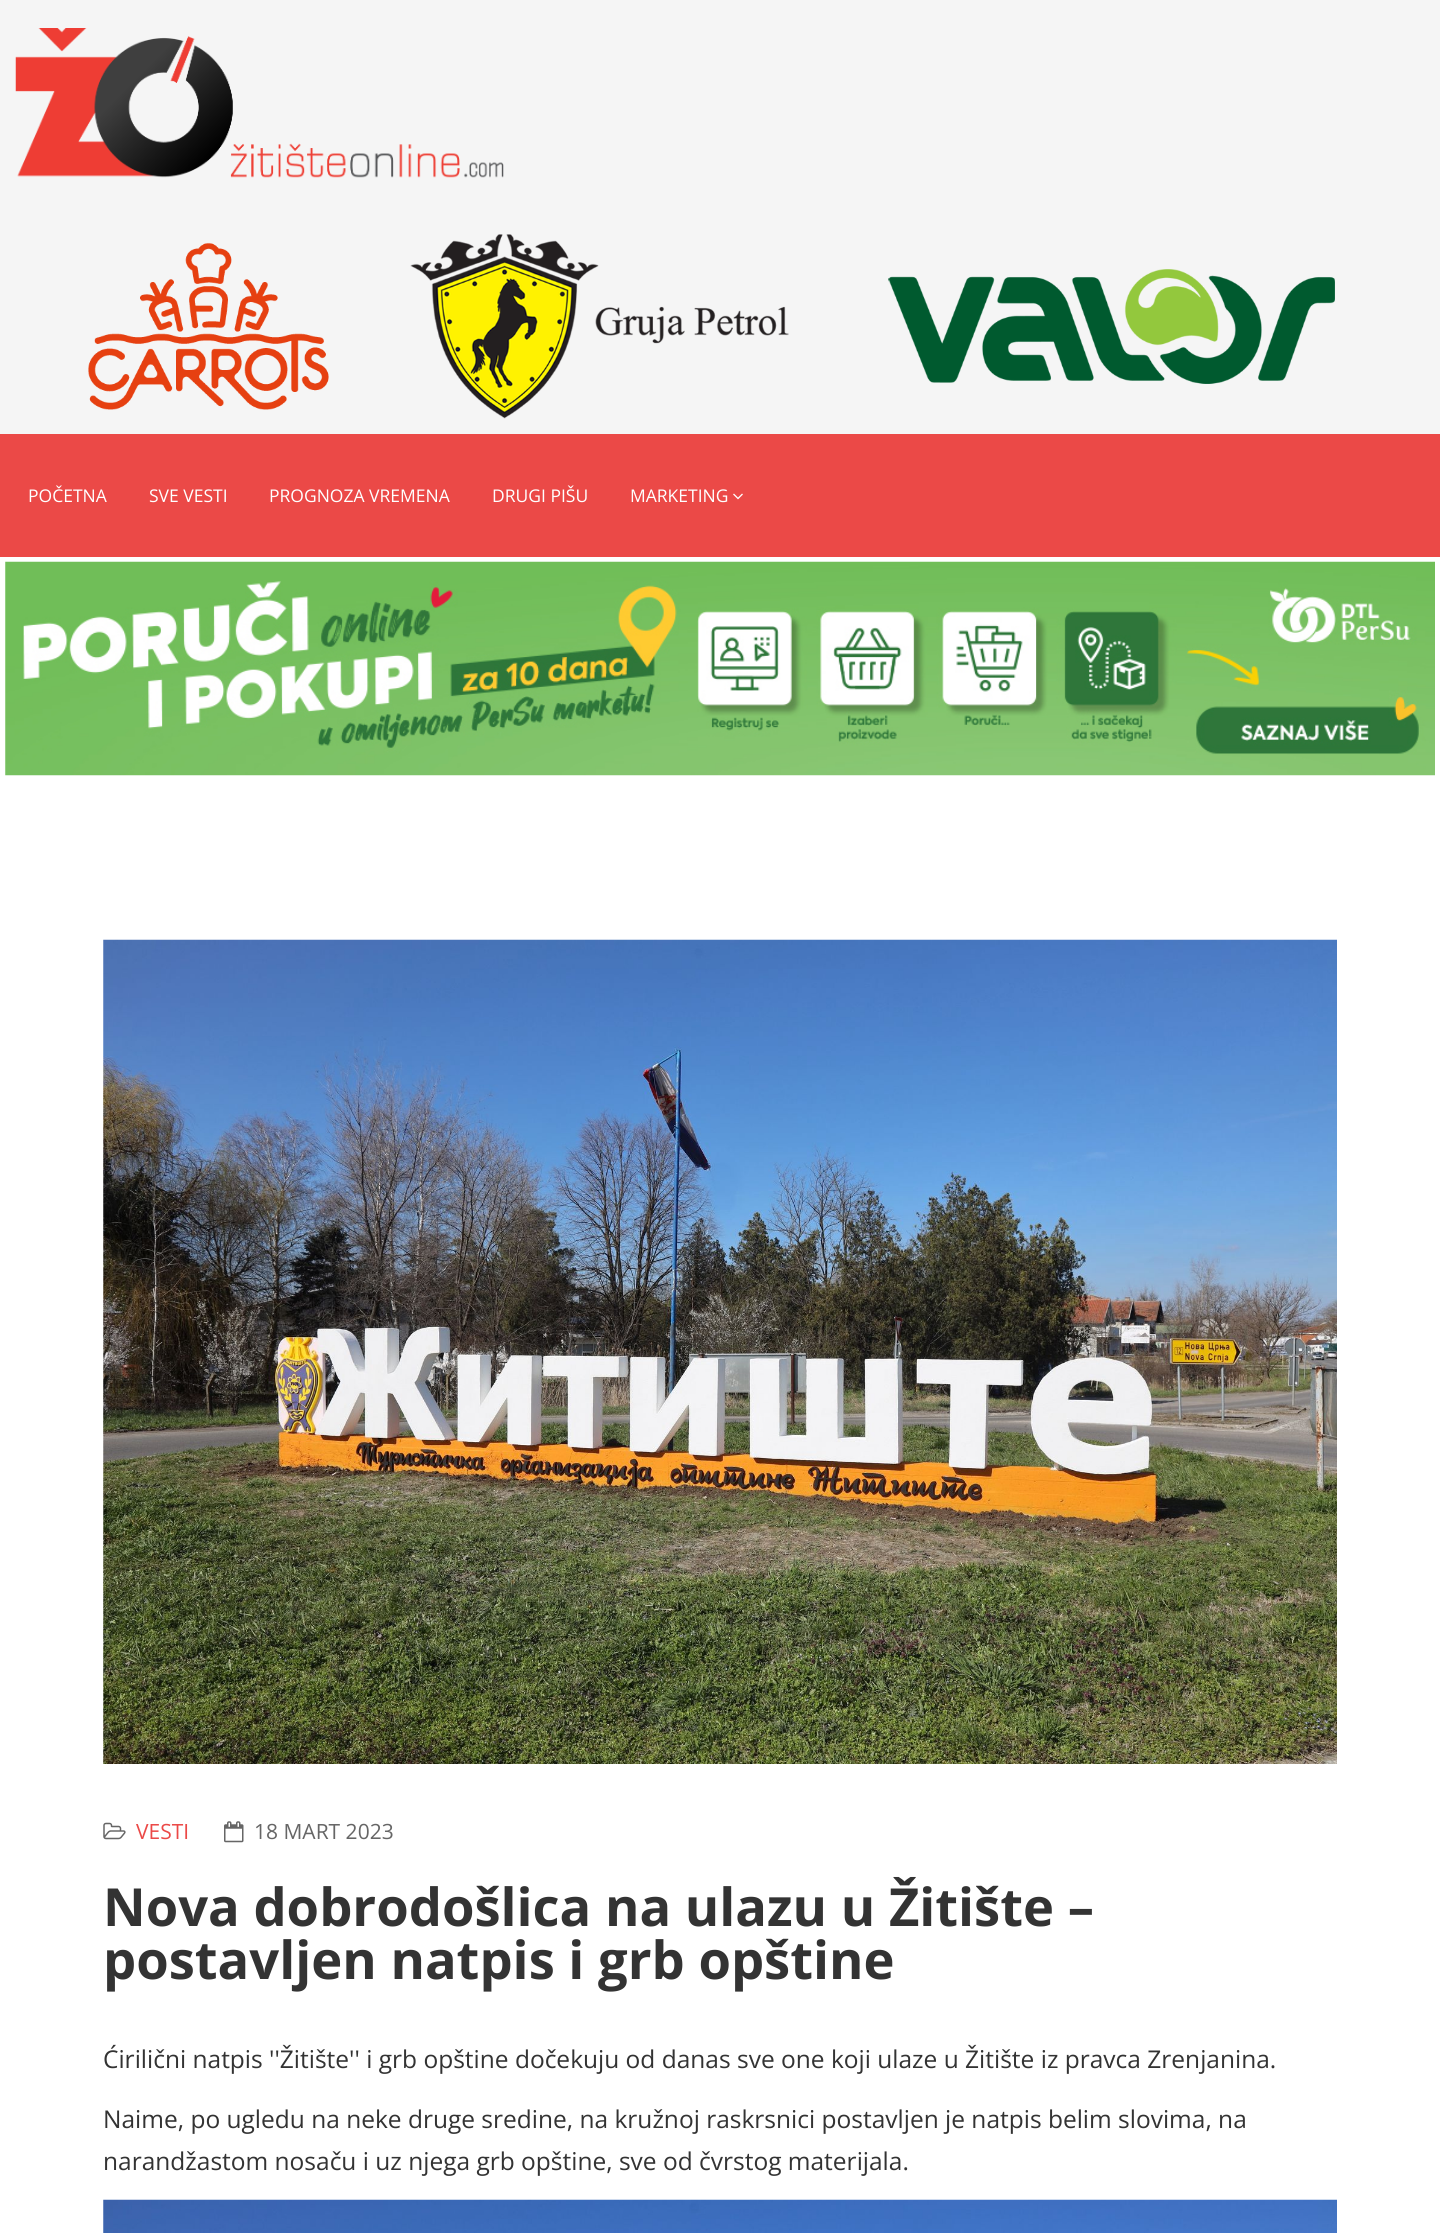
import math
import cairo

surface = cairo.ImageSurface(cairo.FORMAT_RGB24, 1440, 2233)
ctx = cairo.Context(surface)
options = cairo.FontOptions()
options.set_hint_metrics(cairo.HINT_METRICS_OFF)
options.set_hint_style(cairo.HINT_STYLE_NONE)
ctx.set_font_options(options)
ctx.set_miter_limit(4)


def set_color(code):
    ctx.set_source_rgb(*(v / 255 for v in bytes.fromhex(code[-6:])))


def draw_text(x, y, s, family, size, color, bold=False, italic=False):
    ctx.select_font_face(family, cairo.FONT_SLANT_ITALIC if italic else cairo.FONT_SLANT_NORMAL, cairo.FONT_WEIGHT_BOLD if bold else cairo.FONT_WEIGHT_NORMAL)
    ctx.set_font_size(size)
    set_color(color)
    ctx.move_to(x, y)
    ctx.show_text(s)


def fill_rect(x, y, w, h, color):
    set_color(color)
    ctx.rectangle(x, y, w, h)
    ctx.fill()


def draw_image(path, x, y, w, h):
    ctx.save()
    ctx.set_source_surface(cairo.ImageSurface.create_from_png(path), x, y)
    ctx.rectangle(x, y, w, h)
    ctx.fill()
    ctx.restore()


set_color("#ffffff")
ctx.paint()
fill_rect(0, 0, 1440, 434, "#f5f5f5")
draw_image("assets/img1.png", 15, 28, 489, 150)
draw_image("assets/img2.png", 88, 234, 1247, 185)
fill_rect(0, 434, 1440, 123, "#eb4947")
draw_text(28, 502, "POČETNA", "Open Sans", 17.5, "#ffffff")
draw_text(149, 502, "SVE VESTI", "Open Sans", 17.5, "#ffffff")
draw_text(269, 502, "PROGNOZA VREMENA", "Open Sans", 17.5, "#ffffff")
draw_text(492, 502, "DRUGI PIŠU", "Open Sans", 17.5, "#ffffff")
draw_text(630, 502, "MARKETING", "Open Sans", 17.5, "#ffffff")
draw_image("assets/img3.png", 733, 493, 10, 7)
draw_image("assets/img4.png", 5, 561, 1430, 215)
draw_image("assets/img5.png", 103, 939, 1234, 825)
draw_image("assets/img6.png", 103, 1822, 23, 18)
draw_text(136, 1839, "VESTI", "Open Sans", 21, "#eb4947")
draw_image("assets/img7.png", 224, 1821, 20, 22)
draw_text(254, 1839, "18 MART 2023", "Open Sans", 21, "#666666")
draw_text(103, 1926, "Nova dobrodošlica na ulazu u Žitište –", "Open Sans", 52.5, "#333333", bold=True)
draw_text(103, 1979, "postavljen natpis i grb opštine", "Open Sans", 52.5, "#333333", bold=True)
draw_text(103, 2068, "Ćirilični natpis ''Žitište'' i grb opštine dočekuju od danas sve one koji ulaze u Žitište iz pravca Zrenjanina.", "Open Sans", 24.5, "#333333")
draw_text(103, 2128, "Naime, po ugledu na neke druge sredine, na kružnoj raskrsnici postavljen je natpis belim slovima, na", "Open Sans", 24.5, "#333333")
draw_text(103, 2170, "narandžastom nosaču i uz njega grb opštine, sve od čvrstog materijala.", "Open Sans", 24.5, "#333333")
draw_image("assets/img8.png", 103, 2199, 1234, 34)
surface.write_to_png("output.png")
